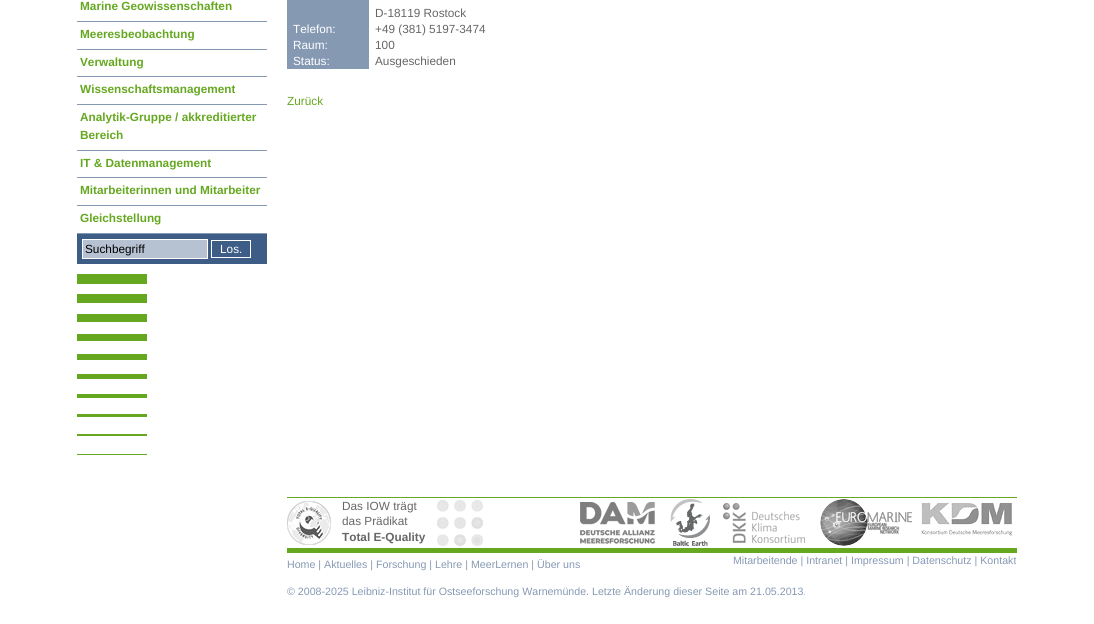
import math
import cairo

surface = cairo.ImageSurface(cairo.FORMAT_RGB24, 1094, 624)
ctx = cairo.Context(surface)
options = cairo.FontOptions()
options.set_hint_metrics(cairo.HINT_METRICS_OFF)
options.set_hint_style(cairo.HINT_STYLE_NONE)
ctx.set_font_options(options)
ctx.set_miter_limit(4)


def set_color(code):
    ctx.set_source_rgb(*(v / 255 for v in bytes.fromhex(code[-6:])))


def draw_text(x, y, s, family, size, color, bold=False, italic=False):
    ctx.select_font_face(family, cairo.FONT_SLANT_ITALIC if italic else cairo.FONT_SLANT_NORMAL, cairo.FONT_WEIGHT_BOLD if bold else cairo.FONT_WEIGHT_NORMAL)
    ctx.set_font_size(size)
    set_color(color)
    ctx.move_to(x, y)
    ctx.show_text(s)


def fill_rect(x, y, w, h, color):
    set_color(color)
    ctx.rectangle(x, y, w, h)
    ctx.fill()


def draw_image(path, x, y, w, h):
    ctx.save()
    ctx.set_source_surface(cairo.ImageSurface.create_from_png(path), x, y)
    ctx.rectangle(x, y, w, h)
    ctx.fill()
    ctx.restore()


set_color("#ffffff")
ctx.paint()
fill_rect(77, 233, 190, 1, "#8699b3")
draw_text(80, 10, "Marine Geowissenschaften", "Liberation Sans", 11.8, "#65a820", bold=True)
fill_rect(77, 21, 190, 1, "#8699b3")
draw_text(80, 38, "Meeresbeobachtung", "Liberation Sans", 11.8, "#65a820", bold=True)
fill_rect(77, 49, 190, 1, "#8699b3")
draw_text(80, 66, "Verwaltung", "Liberation Sans", 11.8, "#65a820", bold=True)
fill_rect(77, 76, 190, 1, "#8699b3")
draw_text(80, 93, "Wissenschaftsmanagement", "Liberation Sans", 11.8, "#65a820", bold=True)
fill_rect(77, 104, 190, 1, "#8699b3")
draw_text(80, 121, "Analytik-Gruppe / akkreditierter", "Liberation Sans", 11.8, "#65a820", bold=True)
draw_text(80, 139, "Bereich", "Liberation Sans", 11.8, "#65a820", bold=True)
fill_rect(77, 150, 190, 1, "#8699b3")
draw_text(80, 167, "IT & Datenmanagement", "Liberation Sans", 11.8, "#65a820", bold=True)
fill_rect(77, 177, 190, 1, "#8699b3")
draw_text(80, 194, "Mitarbeiterinnen und Mitarbeiter", "Liberation Sans", 11.8, "#65a820", bold=True)
fill_rect(77, 205, 190, 1, "#8699b3")
draw_text(80, 222, "Gleichstellung", "Liberation Sans", 11.8, "#65a820", bold=True)
fill_rect(77, 234, 190, 30, "#3d5c86")
set_color("#b6c1d1")
ctx.rectangle(82.5, 239.5, 125, 19)
ctx.fill_preserve()
set_color("#ffffff")
ctx.set_line_width(1)
ctx.stroke()
draw_text(85, 253, "Suchbegriff", "Liberation Sans", 11.8, "#000000")
ctx.rectangle(211.5, 240.5, 39, 17)
set_color("#ffffff")
ctx.stroke()
draw_text(220, 253, "Los.", "Liberation Sans", 11.8, "#ffffff")
draw_image("assets/img1.png", 77, 274, 70, 181)
fill_rect(287, 0, 82, 69, "#8699b3")
draw_text(375, 17, "D-18119 Rostock", "Liberation Sans", 11.8, "#666666")
draw_text(293, 33, "Telefon:", "Liberation Sans", 11.8, "#ffffff")
draw_text(375, 33, "+49 (381) 5197-3474", "Liberation Sans", 11.8, "#666666")
draw_text(293, 49, "Raum:", "Liberation Sans", 11.8, "#ffffff")
draw_text(375, 49, "100", "Liberation Sans", 11.8, "#666666")
draw_text(293, 65, "Status:", "Liberation Sans", 11.8, "#ffffff")
draw_text(375, 65, "Ausgeschieden", "Liberation Sans", 11.8, "#666666")
draw_text(287, 105, "Zurück", "Liberation Sans", 11.8, "#65a820")
fill_rect(287, 497, 730, 1, "#65a820")
fill_rect(287, 548, 730, 5, "#65a820")
draw_image("assets/img2.png", 287, 501, 44, 44)
draw_text(342, 510, "Das IOW trägt", "Liberation Sans", 11.8, "#666666")
draw_text(342, 525, "das Prädikat", "Liberation Sans", 11.8, "#666666")
draw_text(342, 541, "Total E-Quality", "Liberation Sans", 11.8, "#666666", bold=True)
draw_image("assets/img3.png", 437, 500, 46, 46)
draw_image("assets/img4.png", 580, 502, 75, 42)
draw_image("assets/img5.png", 670, 499, 40, 47)
draw_image("assets/img6.png", 723, 503, 82, 40)
draw_image("assets/img7.png", 820, 499, 92, 47)
draw_image("assets/img8.png", 921, 502, 92, 34)
draw_text(287, 568, "Home | Aktuelles | Forschung | Lehre | MeerLernen | Über uns", "Liberation Sans", 10.65, "#8699b3")
draw_text(733, 564, "Mitarbeitende | Intranet | Impressum | Datenschutz | Kontakt", "Liberation Sans", 10.65, "#8699b3")
draw_text(287, 595, "© 2008-2025 Leibniz-Institut für Ostseeforschung Warnemünde. Letzte Änderung dieser Seite am 21.05.2013.", "Liberation Sans", 10.65, "#8699b3")
surface.write_to_png("output.png")
